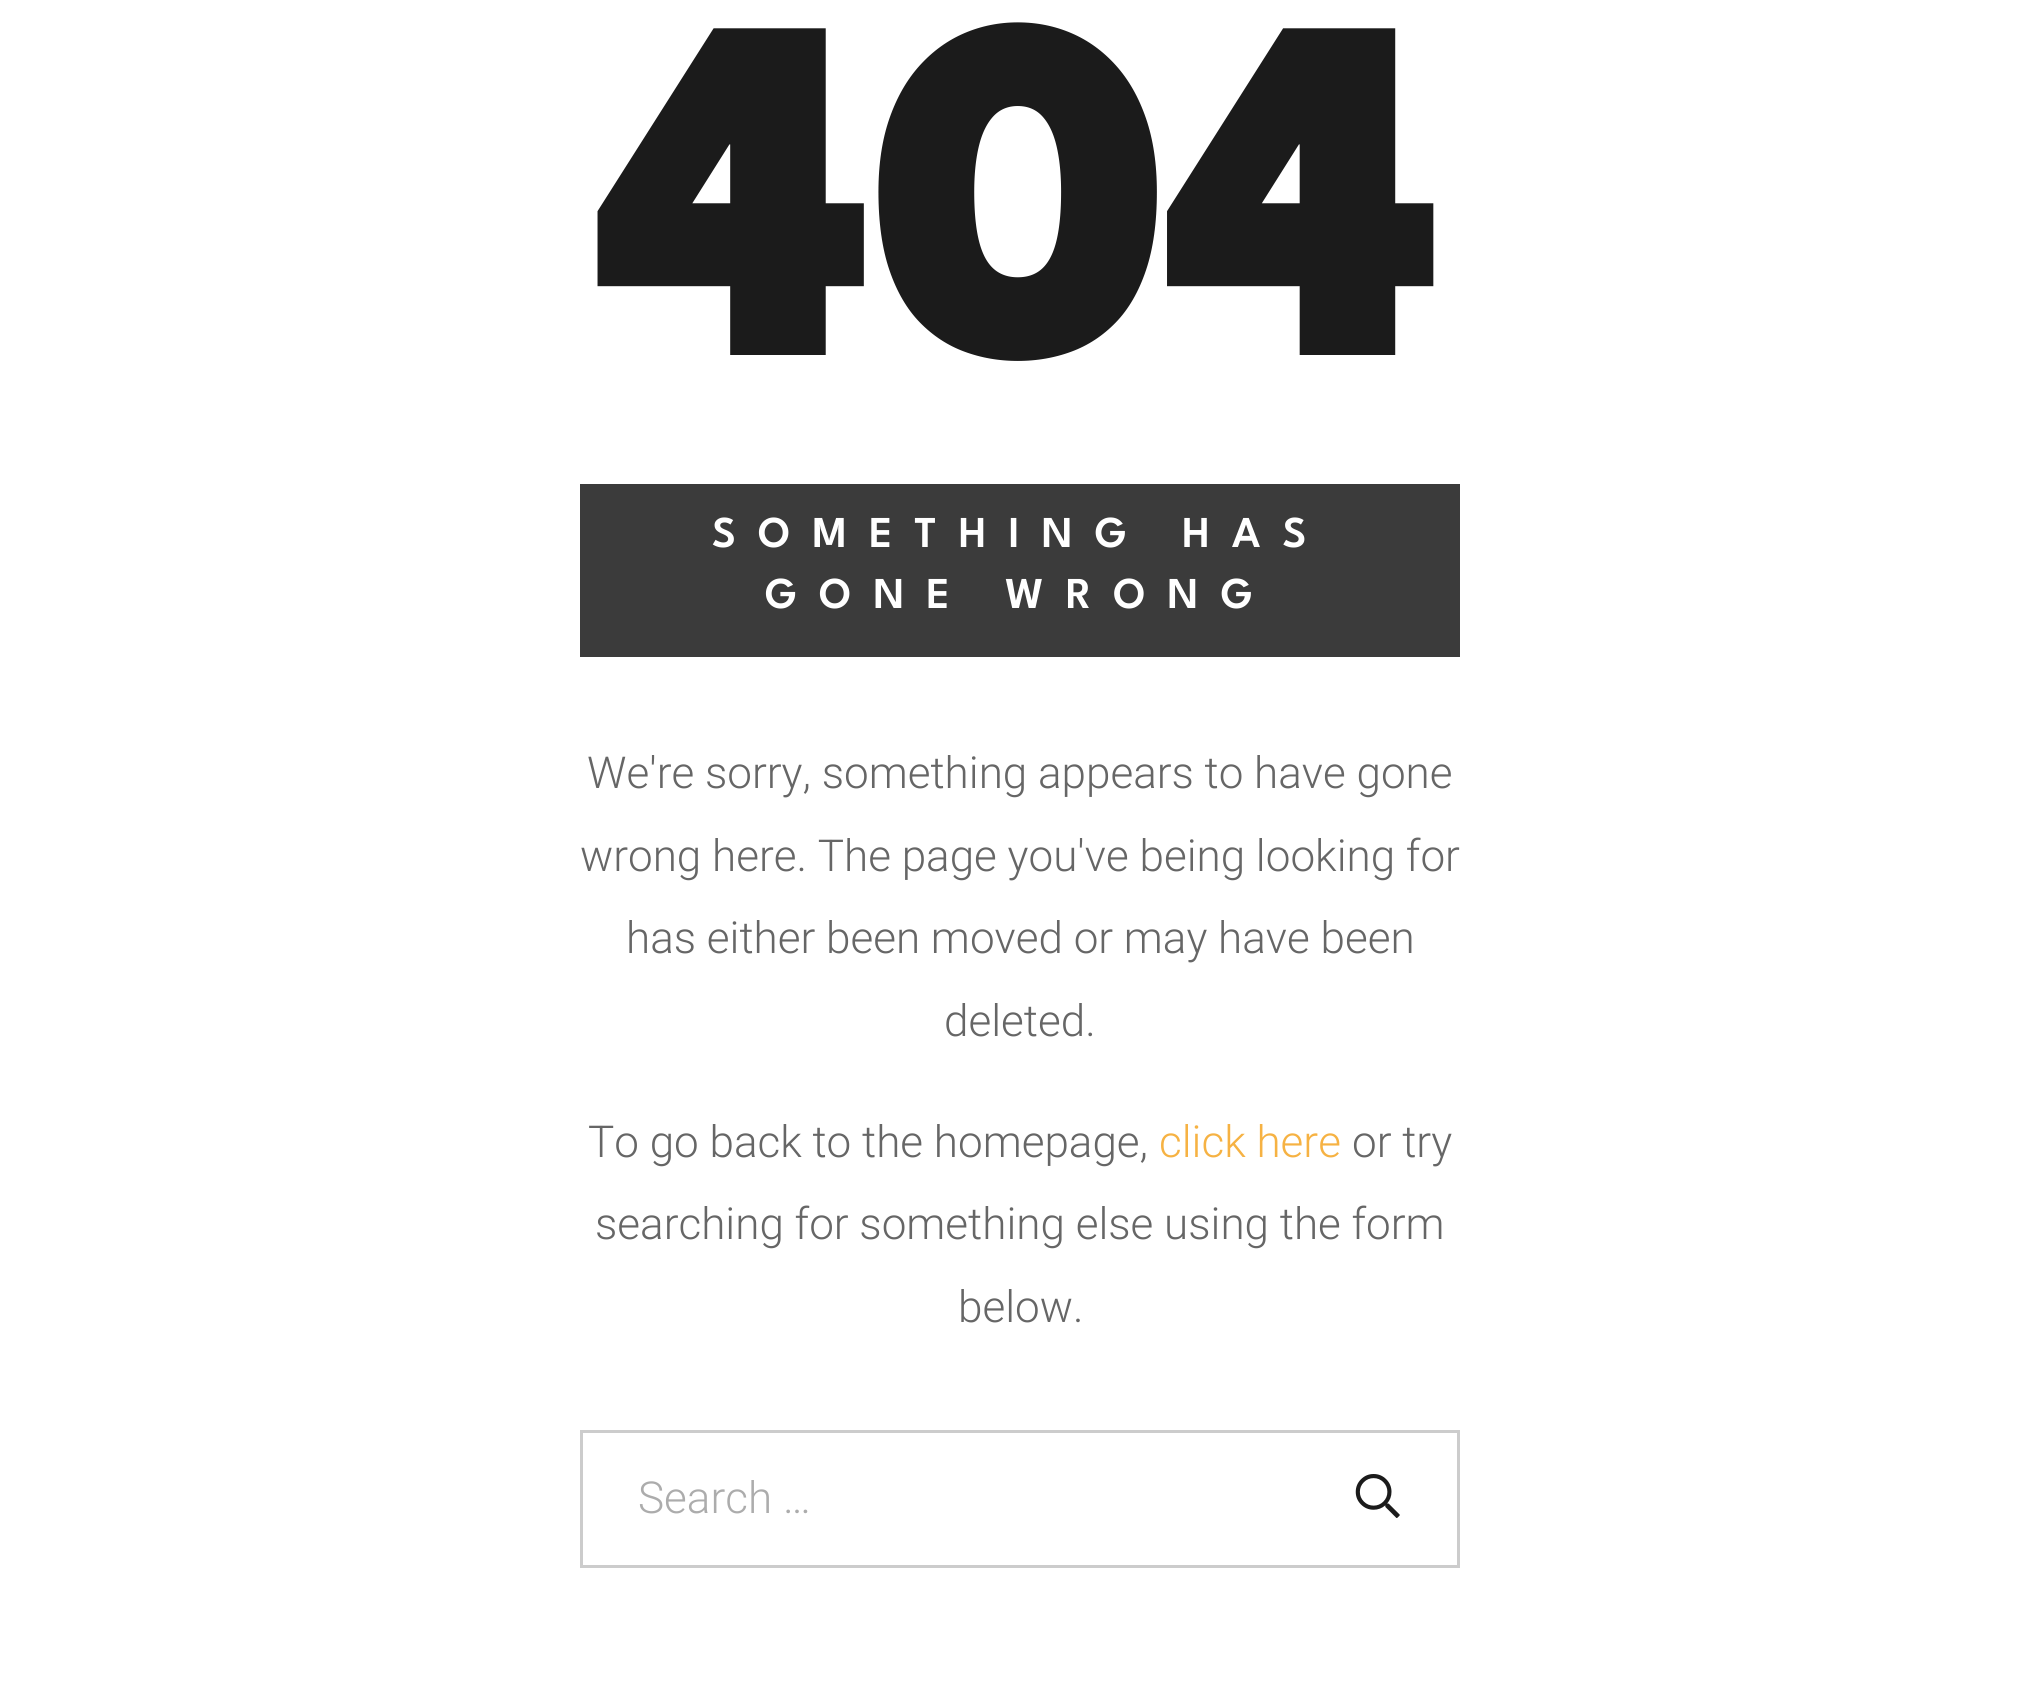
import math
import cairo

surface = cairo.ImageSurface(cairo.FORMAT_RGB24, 2040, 1705)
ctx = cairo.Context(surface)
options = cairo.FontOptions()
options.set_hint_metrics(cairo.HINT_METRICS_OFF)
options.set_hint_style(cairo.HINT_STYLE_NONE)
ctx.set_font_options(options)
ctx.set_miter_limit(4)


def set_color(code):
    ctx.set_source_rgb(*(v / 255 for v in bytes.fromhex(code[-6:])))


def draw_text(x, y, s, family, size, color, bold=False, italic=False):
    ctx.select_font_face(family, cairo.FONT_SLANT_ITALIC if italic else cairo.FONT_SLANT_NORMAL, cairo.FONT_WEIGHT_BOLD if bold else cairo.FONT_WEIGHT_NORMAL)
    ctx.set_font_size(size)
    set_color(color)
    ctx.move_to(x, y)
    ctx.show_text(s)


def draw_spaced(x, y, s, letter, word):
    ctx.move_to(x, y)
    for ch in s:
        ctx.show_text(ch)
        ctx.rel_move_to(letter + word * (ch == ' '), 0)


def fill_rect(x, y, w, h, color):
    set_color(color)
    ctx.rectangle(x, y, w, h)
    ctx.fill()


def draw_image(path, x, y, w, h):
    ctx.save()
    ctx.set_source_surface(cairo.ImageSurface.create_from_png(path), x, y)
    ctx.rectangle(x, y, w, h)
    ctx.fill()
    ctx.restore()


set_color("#ffffff")
ctx.paint()
draw_text(600, 355, "404", "League Spartan Black", 495, "#1b1b1b")
fill_rect(580, 484, 880, 173, "#3b3b3b")
ctx.select_font_face("League Spartan SemiBold")
ctx.set_font_size(44)
set_color("#ffffff")
draw_spaced(712, 547, "SOMETHING HAS", 22, 0)
draw_spaced(765, 608, "GONE WRONG", 22, 0)
draw_text(587, 788, "We're sorry, something appears to have gone", "Roboto Light", 44, "#666666")
draw_text(580, 871, "wrong here. The page you've being looking for", "Roboto Light", 44, "#666666")
draw_text(626, 953, "has either been moved or may have been", "Roboto Light", 44, "#666666")
draw_text(944, 1036, "deleted.", "Roboto Light", 44, "#666666")
draw_text(588, 1157, "To go back to the homepage,", "Roboto Light", 44, "#666666")
draw_text(1159, 1157, "click here", "Roboto Light", 44, "#f6b243")
draw_text(1352, 1157, "or try", "Roboto Light", 44, "#666666")
draw_text(595, 1239, "searching for something else using the form", "Roboto Light", 44, "#666666")
draw_text(958, 1322, "below.", "Roboto Light", 44, "#666666")
ctx.rectangle(581.5, 1431.5, 877, 135)
set_color("#cccccc")
ctx.set_line_width(3)
ctx.stroke()
draw_text(638, 1513, "Search …", "Roboto Light", 44, "#acacac")
draw_image("assets/img1.png", 1355, 1474, 45, 44)
surface.write_to_png("output.png")
